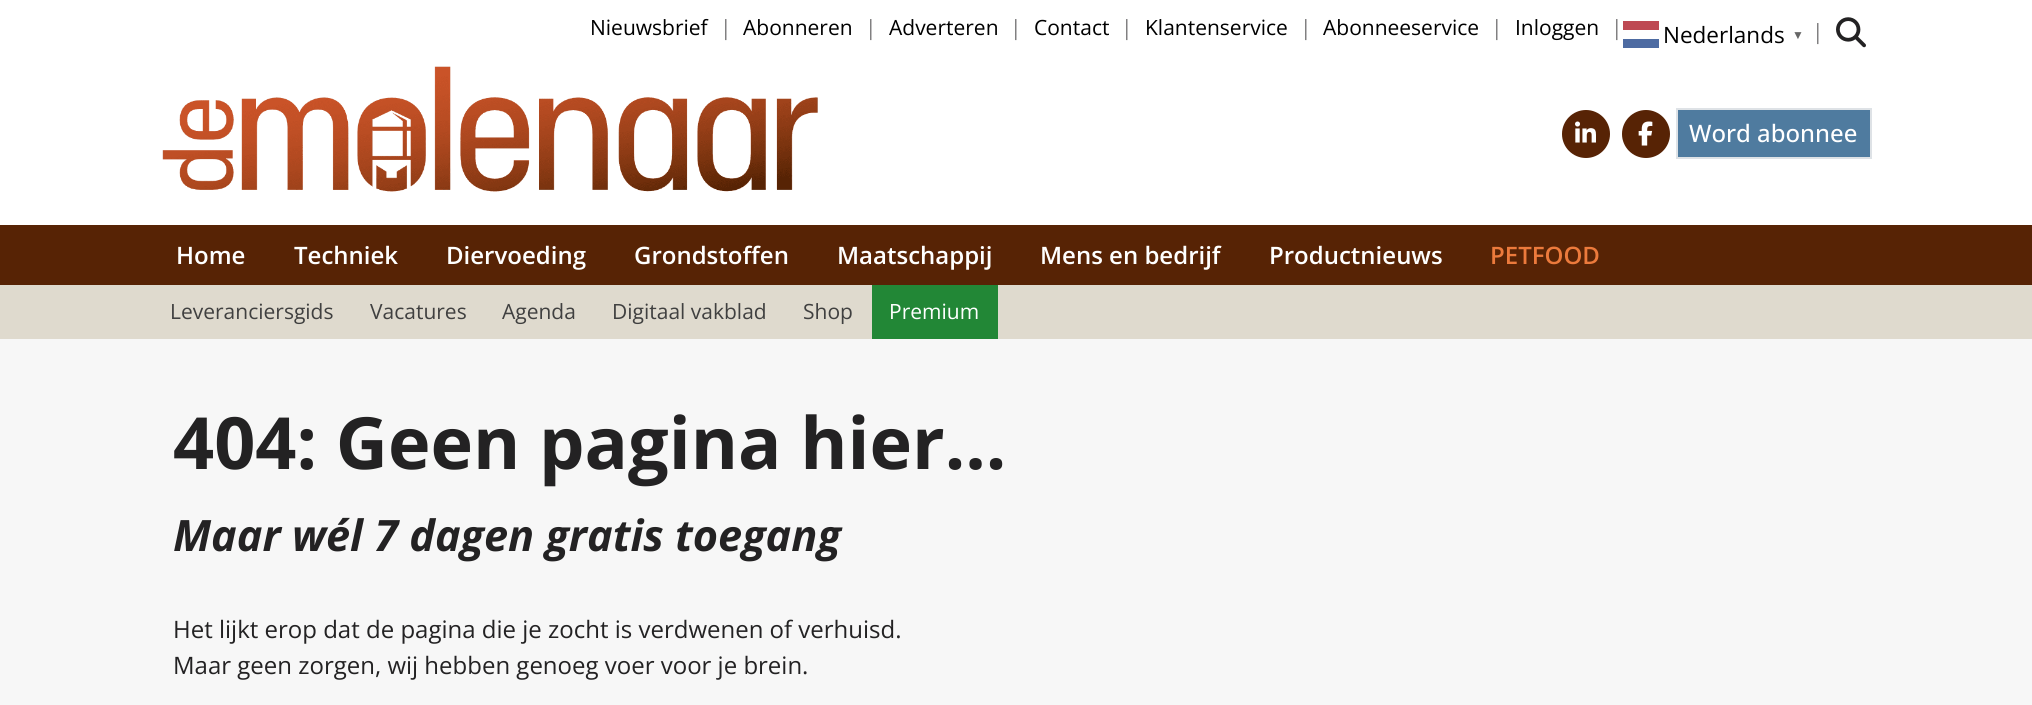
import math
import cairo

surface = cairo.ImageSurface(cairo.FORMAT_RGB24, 2032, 705)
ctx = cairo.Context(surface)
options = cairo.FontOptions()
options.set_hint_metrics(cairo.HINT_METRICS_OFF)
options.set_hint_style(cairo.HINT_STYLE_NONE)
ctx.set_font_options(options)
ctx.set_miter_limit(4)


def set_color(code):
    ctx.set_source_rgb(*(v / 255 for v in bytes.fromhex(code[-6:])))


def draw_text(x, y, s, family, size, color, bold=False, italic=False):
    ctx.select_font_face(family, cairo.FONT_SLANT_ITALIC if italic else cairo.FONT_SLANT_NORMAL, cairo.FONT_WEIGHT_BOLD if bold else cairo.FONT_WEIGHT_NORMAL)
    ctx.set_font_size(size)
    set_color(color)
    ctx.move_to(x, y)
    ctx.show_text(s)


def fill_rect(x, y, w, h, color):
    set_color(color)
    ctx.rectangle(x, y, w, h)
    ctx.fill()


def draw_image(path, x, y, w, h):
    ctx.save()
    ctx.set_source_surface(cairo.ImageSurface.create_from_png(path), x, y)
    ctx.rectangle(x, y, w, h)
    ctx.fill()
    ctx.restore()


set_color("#f7f7f7")
ctx.paint()
fill_rect(0, 0, 2032, 225, "#ffffff")
draw_text(590, 35, "Nieuwsbrief", "Open Sans", 21, "#000000")
draw_text(720, 35, "|", "Open Sans", 21, "#7b7a7b")
draw_text(743, 35, "Abonneren", "Open Sans", 21, "#000000")
draw_text(865, 35, "|", "Open Sans", 21, "#7b7a7b")
draw_text(889, 35, "Adverteren", "Open Sans", 21, "#000000")
draw_text(1010, 35, "|", "Open Sans", 21, "#7b7a7b")
draw_text(1034, 35, "Contact", "Open Sans", 21, "#000000")
draw_text(1121, 35, "|", "Open Sans", 21, "#7b7a7b")
draw_text(1145, 35, "Klantenservice", "Open Sans", 21, "#000000")
draw_text(1300, 35, "|", "Open Sans", 21, "#7b7a7b")
draw_text(1323, 35, "Abonneeservice", "Open Sans", 21, "#000000")
draw_text(1491, 35, "|", "Open Sans", 21, "#7b7a7b")
draw_text(1515, 35, "Inloggen", "Open Sans", 21, "#000000")
draw_text(1611, 35, "|", "Open Sans", 21, "#7b7a7b")
draw_text(1663, 43, "Nederlands", "Open Sans", 22.5, "#000000")
fill_rect(1623, 39, 36, 9, "#4d6ba2")
fill_rect(1623, 21, 36, 9, "#be4953")
draw_text(1792, 39, "▼", "Liberation Serif", 12, "#666666", bold=True)
draw_text(1812, 39, "|", "Open Sans", 21, "#7b7a7b")
draw_image("assets/img1.png", 1836, 17, 30, 31)
draw_image("assets/img2.png", 162, 66, 656, 126)
set_color("#572305")
ctx.arc(1586, 134, 24, 0, 2 * math.pi)
ctx.fill()
draw_image("assets/img3.png", 1575, 121, 21, 22)
ctx.arc(1646, 134, 24, 0, 2 * math.pi)
ctx.fill()
draw_image("assets/img4.png", 1638, 121, 15, 25)
set_color("#4f7b9f")
ctx.rectangle(1677, 109, 194, 49)
ctx.fill_preserve()
set_color("#dee2e6")
ctx.stroke()
draw_text(1689, 142, "Word abonnee", "Open Sans Medium", 24, "#ffffff")
fill_rect(0, 225, 2032, 60, "#572305")
draw_text(176, 264, "Home", "Open Sans SemiBold", 24, "#ffffff")
draw_text(294, 264, "Techniek", "Open Sans SemiBold", 24, "#ffffff")
draw_text(446, 264, "Diervoeding", "Open Sans SemiBold", 24, "#ffffff")
draw_text(634, 264, "Grondstoffen", "Open Sans SemiBold", 24, "#ffffff")
draw_text(837, 264, "Maatschappij", "Open Sans SemiBold", 24, "#ffffff")
draw_text(1040, 264, "Mens en bedrijf", "Open Sans SemiBold", 24, "#ffffff")
draw_text(1269, 264, "Productnieuws", "Open Sans SemiBold", 24, "#ffffff")
draw_text(1490, 264, "PETFOOD", "Open Sans SemiBold", 24, "#ec7a3c")
fill_rect(0, 285, 2032, 54, "#dfdace")
draw_text(170, 319, "Leveranciersgids", "Open Sans", 21, "#404040")
draw_text(370, 319, "Vacatures", "Open Sans", 21, "#404040")
draw_text(502, 319, "Agenda", "Open Sans", 21, "#404040")
draw_text(612, 319, "Digitaal vakblad", "Open Sans", 21, "#404040")
draw_text(803, 319, "Shop", "Open Sans", 21, "#404040")
fill_rect(872, 285, 126, 54, "#228736")
draw_text(889, 319, "Premium", "Open Sans", 21, "#ffffff")
draw_text(173, 469, "404: Geen pagina hier…", "Open Sans", 72, "#232223", bold=True)
draw_text(173, 551, "Maar wél 7 dagen gratis toegang", "Open Sans", 43.25, "#232223", bold=True, italic=True)
draw_text(173, 638, "Het lijkt erop dat de pagina die je zocht is verdwenen of verhuisd.", "Open Sans", 24, "#232223")
draw_text(173, 674, "Maar geen zorgen, wij hebben genoeg voer voor je brein.", "Open Sans", 24, "#232223")
surface.write_to_png("output.png")
